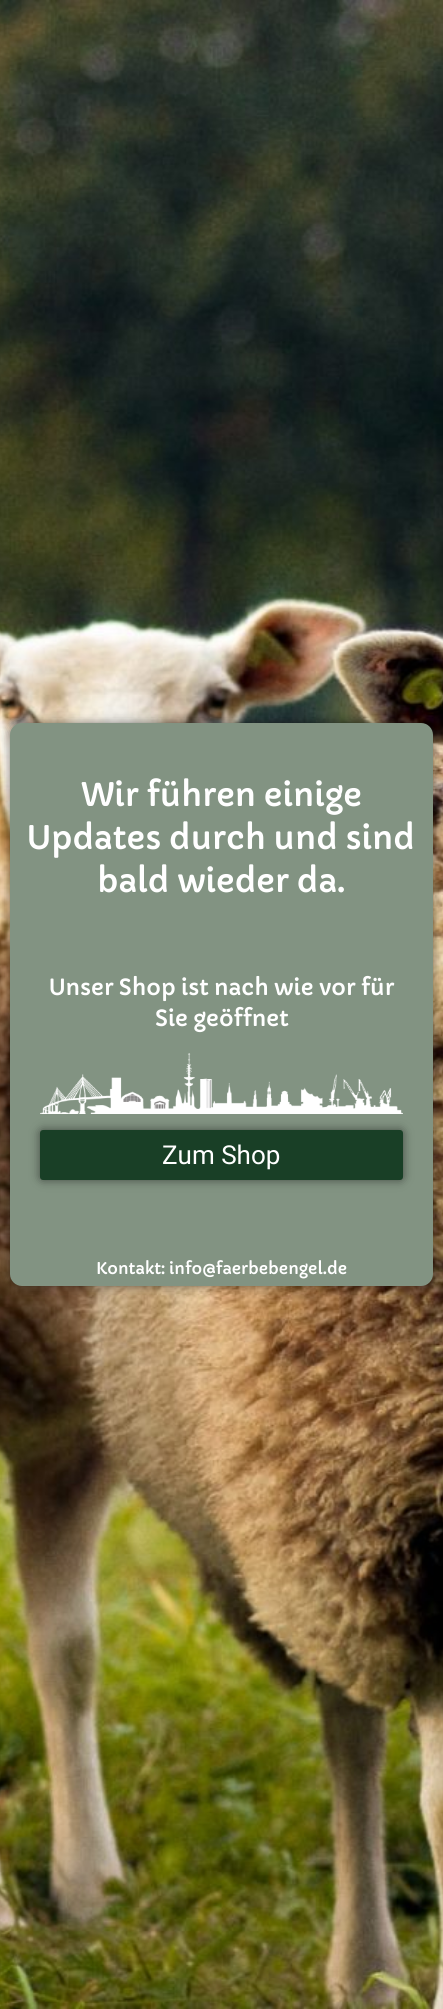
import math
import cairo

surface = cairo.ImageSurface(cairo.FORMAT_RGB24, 443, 2009)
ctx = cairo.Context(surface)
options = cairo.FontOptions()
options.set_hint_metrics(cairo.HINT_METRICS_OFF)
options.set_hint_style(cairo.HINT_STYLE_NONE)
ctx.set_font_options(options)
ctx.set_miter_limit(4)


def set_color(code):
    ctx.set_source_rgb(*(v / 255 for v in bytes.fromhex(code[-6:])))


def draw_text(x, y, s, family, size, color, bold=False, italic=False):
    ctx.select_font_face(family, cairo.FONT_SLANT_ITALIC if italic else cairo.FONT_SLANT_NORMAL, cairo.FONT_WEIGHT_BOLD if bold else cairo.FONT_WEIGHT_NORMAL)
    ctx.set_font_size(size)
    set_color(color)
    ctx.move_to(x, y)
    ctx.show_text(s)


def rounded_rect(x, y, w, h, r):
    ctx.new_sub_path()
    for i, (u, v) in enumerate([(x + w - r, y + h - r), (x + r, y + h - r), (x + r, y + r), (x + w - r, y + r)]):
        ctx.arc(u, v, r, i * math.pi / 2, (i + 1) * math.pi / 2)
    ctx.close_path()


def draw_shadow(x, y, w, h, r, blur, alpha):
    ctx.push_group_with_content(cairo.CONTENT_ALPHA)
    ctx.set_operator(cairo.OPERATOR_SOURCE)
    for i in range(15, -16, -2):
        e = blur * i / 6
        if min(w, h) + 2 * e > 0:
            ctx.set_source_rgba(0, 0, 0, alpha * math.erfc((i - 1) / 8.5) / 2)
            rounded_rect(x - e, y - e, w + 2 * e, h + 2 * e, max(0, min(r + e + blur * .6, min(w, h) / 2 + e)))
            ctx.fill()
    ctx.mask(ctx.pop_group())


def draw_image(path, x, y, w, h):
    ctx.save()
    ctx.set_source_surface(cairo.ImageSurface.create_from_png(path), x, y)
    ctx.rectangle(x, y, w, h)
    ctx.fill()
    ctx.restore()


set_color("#ffffff")
ctx.paint()
draw_image("assets/img1.png", 0, 0, 443, 2009)
set_color("#000000")
draw_shadow(10, 723, 423, 563, 12, 5, 0.5)
set_color("#829382")
rounded_rect(10, 723, 423, 563, 12)
ctx.fill()
draw_text(81, 806, "Wir führen einige", "Capriola Medium", 32, "#ffffff")
draw_text(27, 849, "Updates durch und sind", "Capriola Medium", 32, "#ffffff")
draw_text(97, 892, "bald wieder da.", "Capriola Medium", 32, "#ffffff")
draw_text(49, 995, "Unser Shop ist nach wie vor für", "Capriola Medium", 22, "#ffffff")
draw_text(155, 1026, "Sie geöffnet", "Capriola Medium", 22, "#ffffff")
draw_image("assets/img2.png", 40, 1053, 363, 61)
set_color("#000000")
draw_shadow(40, 1130, 363, 50, 3, 5, 0.5)
set_color("#193f26")
rounded_rect(40, 1130, 363, 50, 3)
ctx.fill()
draw_text(162, 1164, "Zum Shop", "Roboto", 26, "#ffffff")
draw_text(96, 1274, "Kontakt: info@faerbebengel.de", "Capriola Medium", 16, "#ffffff")
surface.write_to_png("output.png")
